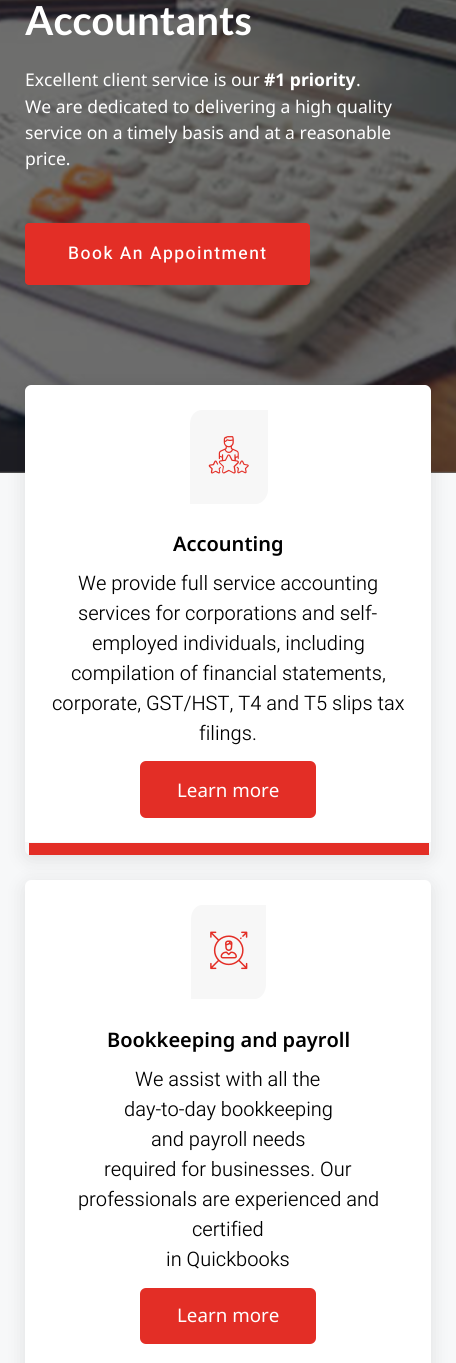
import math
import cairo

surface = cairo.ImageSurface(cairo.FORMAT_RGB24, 456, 1363)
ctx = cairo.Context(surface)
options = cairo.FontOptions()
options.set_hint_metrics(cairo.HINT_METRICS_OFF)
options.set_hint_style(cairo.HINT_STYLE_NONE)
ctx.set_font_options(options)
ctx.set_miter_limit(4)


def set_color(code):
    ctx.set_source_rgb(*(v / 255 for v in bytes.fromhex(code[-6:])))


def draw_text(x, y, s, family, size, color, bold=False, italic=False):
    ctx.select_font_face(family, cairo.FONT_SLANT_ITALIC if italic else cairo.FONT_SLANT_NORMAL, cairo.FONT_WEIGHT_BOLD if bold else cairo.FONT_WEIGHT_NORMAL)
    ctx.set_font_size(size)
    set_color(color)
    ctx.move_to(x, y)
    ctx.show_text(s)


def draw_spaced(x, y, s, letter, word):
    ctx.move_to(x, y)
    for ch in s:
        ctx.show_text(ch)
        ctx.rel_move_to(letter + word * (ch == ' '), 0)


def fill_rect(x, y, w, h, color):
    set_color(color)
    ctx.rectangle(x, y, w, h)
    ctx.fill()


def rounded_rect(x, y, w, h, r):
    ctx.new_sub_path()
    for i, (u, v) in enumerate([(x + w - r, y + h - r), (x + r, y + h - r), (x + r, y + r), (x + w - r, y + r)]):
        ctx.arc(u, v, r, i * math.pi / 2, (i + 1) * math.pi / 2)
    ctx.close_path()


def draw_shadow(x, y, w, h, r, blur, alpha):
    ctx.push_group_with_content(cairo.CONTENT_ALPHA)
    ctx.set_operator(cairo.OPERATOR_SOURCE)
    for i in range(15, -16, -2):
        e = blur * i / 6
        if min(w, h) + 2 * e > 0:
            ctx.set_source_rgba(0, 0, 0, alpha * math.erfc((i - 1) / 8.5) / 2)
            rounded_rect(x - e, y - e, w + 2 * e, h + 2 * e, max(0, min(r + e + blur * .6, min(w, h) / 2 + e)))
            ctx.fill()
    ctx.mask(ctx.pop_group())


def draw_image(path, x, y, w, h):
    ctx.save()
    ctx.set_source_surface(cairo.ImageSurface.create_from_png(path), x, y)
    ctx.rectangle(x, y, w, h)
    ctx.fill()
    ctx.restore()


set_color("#f7f8f9")
ctx.paint()
fill_rect(0, 471, 456, 2, "#6f7070")
draw_image("assets/img1.png", 0, 0, 456, 473)
draw_text(25, 35, "Accountants", "Lato", 40, "#ffffff", bold=True)
draw_text(25, 86, "Excellent client service is our", "Noto Sans", 17.5, "#ffffff")
draw_text(264, 86, "#1 priority", "Noto Sans", 17.5, "#ffffff", bold=True)
draw_text(356, 86, ".", "Noto Sans", 17.5, "#ffffff")
draw_text(25, 113, "We are dedicated to delivering a high quality", "Noto Sans", 17.5, "#ffffff")
draw_text(25, 139, "service on a timely basis and at a reasonable", "Noto Sans", 17.5, "#ffffff")
draw_text(25, 165, "price.", "Noto Sans", 17.5, "#ffffff")
set_color("#e32e26")
rounded_rect(25, 223, 285, 62, 4)
ctx.fill()
ctx.select_font_face("Heebo Medium")
set_color("#ffffff")
draw_spaced(68, 259, "Book An Appointment", 1.5, 0)
ctx.save()
ctx.set_fill_rule(cairo.FILL_RULE_EVEN_ODD)
ctx.new_path()
ctx.move_to(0, 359)
ctx.line_to(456, 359)
ctx.line_to(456, 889)
ctx.line_to(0, 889)
ctx.close_path()
ctx.move_to(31, 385)
ctx.line_to(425, 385)
ctx.curve_to(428.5, 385, 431, 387.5, 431, 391)
ctx.line_to(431, 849)
ctx.curve_to(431, 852.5, 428.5, 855, 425, 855)
ctx.line_to(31, 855)
ctx.curve_to(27.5, 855, 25, 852.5, 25, 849)
ctx.line_to(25, 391)
ctx.curve_to(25, 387.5, 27.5, 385, 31, 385)
ctx.close_path()
ctx.clip()
set_color("#000000")
draw_shadow(25, 389, 406, 470, 6, 9.5, 0.1)
ctx.restore()
ctx.new_path()
ctx.move_to(31, 385)
ctx.line_to(425, 385)
ctx.curve_to(428, 385, 431, 388, 431, 391)
ctx.line_to(431, 842)
ctx.line_to(25, 842)
ctx.line_to(25, 391)
ctx.curve_to(25, 388, 28, 385, 31, 385)
ctx.close_path()
ctx.fill()
fill_rect(29, 843, 400, 12, "#e32e26")
set_color("#f7f7f7")
ctx.new_path()
ctx.move_to(202, 410)
ctx.line_to(268, 410)
ctx.line_to(268, 490)
ctx.curve_to(268, 497, 262, 504, 256, 504)
ctx.line_to(190, 504)
ctx.line_to(190, 424)
ctx.curve_to(190, 416, 195, 410, 202, 410)
ctx.close_path()
ctx.fill()
draw_image("assets/img2.png", 208, 436, 41, 38)
draw_text(173, 551, "Accounting", "Noto Sans SemiBold", 20, "#000000")
draw_text(78, 590, "We provide full service accounting", "Heebo Light", 20, "#000000")
draw_text(78, 620, "services for corporations and self-", "Heebo Light", 20, "#000000")
draw_text(92, 650, "employed individuals, including", "Heebo Light", 20, "#000000")
draw_text(71, 680, "compilation of financial statements,", "Heebo Light", 20, "#000000")
draw_text(52, 710, "corporate, GST/HST, T4 and T5 slips tax", "Heebo Light", 20, "#000000")
draw_text(199, 740, "filings.", "Heebo Light", 20, "#000000")
set_color("#e32e26")
rounded_rect(140, 761, 176, 57, 6)
ctx.fill()
draw_text(177, 797, "Learn more", "Noto Sans", 18.75, "#ffffff")
set_color("#000000")
draw_shadow(25, 884, 406, 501, 6, 9.5, 0.1)
set_color("#ffffff")
ctx.new_path()
ctx.move_to(31, 880)
ctx.line_to(425, 880)
ctx.curve_to(428, 880, 431, 883, 431, 886)
ctx.line_to(431, 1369)
ctx.line_to(25, 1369)
ctx.line_to(25, 886)
ctx.curve_to(25, 883, 28, 880, 31, 880)
ctx.close_path()
ctx.fill()
set_color("#f7f7f7")
ctx.new_path()
ctx.move_to(202, 905)
ctx.line_to(266, 905)
ctx.line_to(266, 985)
ctx.curve_to(266, 992, 261, 999, 255, 999)
ctx.line_to(191, 999)
ctx.line_to(191, 919)
ctx.curve_to(191, 911, 196, 905, 202, 905)
ctx.close_path()
ctx.fill()
draw_image("assets/img3.png", 210, 931, 38, 39)
draw_text(107, 1047, "Bookkeeping and payroll", "Noto Sans SemiBold", 20, "#000000")
draw_text(135, 1086, "We assist with all the", "Heebo Light", 20, "#000000")
draw_text(124, 1116, "day-to-day bookkeeping", "Heebo Light", 20, "#000000")
draw_text(151, 1146, "and payroll needs", "Heebo Light", 20, "#000000")
draw_text(104, 1176, "required for businesses. Our", "Heebo Light", 20, "#000000")
draw_text(78, 1206, "professionals are experienced and", "Heebo Light", 20, "#000000")
draw_text(192, 1236, "certified", "Heebo Light", 20, "#000000")
draw_text(166, 1266, "in Quickbooks", "Heebo Light", 20, "#000000")
set_color("#e32e26")
rounded_rect(140, 1288, 176, 56, 6)
ctx.fill()
draw_text(177, 1322, "Learn more", "Noto Sans", 18.75, "#ffffff")
surface.write_to_png("output.png")
